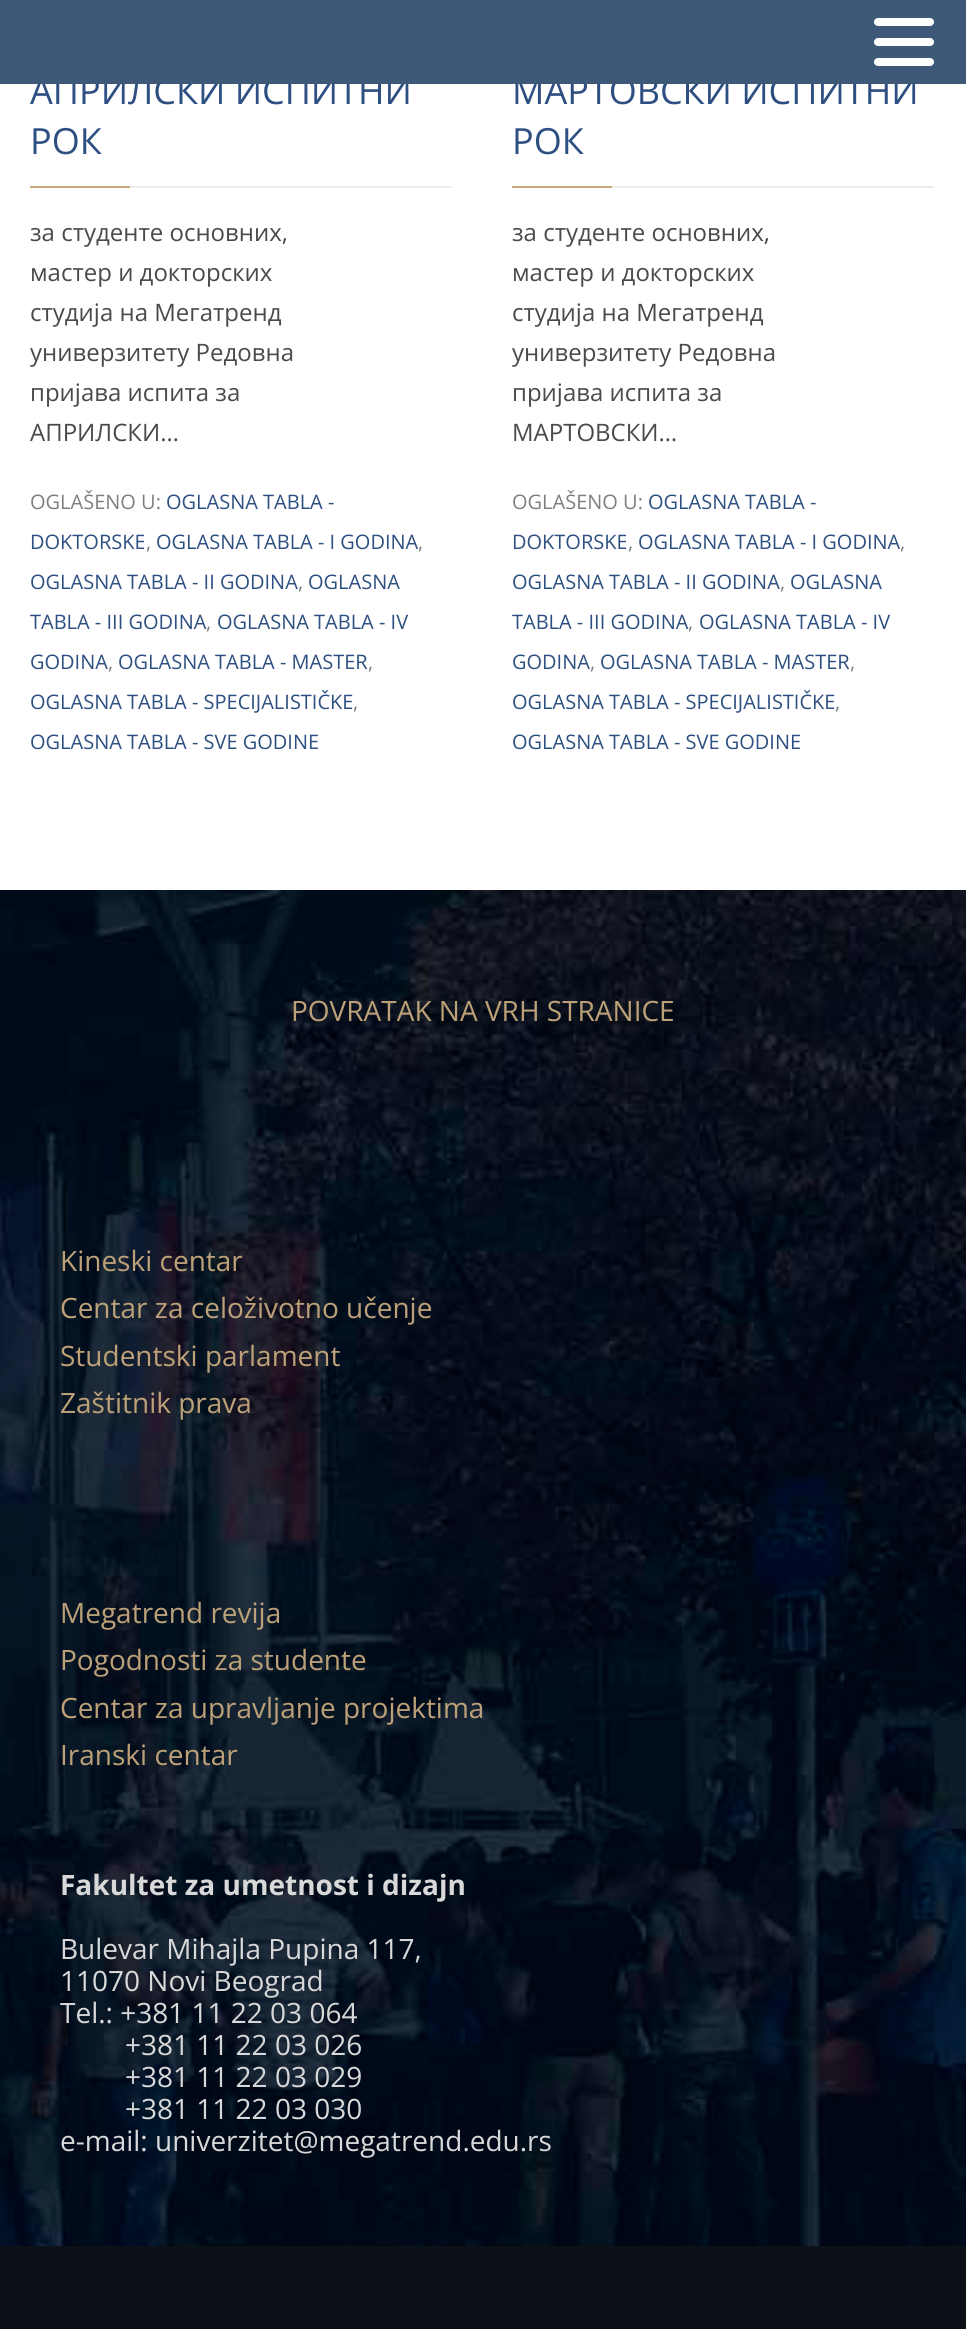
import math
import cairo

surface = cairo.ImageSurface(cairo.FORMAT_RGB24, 966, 2329)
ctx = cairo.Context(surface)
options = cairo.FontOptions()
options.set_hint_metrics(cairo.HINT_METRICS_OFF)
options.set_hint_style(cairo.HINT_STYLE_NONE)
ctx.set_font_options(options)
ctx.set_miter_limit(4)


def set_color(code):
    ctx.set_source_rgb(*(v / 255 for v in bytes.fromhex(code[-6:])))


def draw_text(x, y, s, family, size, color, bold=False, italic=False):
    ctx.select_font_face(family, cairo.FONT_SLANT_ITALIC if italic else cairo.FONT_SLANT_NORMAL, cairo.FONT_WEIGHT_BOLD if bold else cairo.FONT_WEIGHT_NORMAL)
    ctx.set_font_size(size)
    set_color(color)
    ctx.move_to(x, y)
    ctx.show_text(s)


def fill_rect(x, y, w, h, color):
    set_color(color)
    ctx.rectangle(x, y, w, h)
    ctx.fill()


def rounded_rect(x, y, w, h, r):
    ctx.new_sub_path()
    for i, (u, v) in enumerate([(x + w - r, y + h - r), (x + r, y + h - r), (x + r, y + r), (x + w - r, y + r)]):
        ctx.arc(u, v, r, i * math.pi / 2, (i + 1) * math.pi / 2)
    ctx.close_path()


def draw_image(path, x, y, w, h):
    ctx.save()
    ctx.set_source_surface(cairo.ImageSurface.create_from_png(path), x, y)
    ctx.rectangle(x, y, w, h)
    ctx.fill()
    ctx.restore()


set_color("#ffffff")
ctx.paint()
draw_text(30, 104, "АПРИЛСКИ ИСПИТНИ", "Open Sans", 36, "#2d4f81")
draw_text(512, 104, "МАРТОВСКИ ИСПИТНИ", "Open Sans", 36, "#2d4f81")
fill_rect(0, 0, 966, 84, "#3e5978")
set_color("#ffffff")
rounded_rect(874, 18, 60, 8, 4)
ctx.fill()
rounded_rect(874, 38, 60, 8, 4)
ctx.fill()
rounded_rect(874, 58, 60, 8, 4)
ctx.fill()
fill_rect(130, 186, 322, 2, "#ededed")
draw_text(30, 154, "РОК", "Open Sans", 36, "#2d4f81")
fill_rect(30, 186, 100, 2, "#cca876")
draw_text(30, 241, "за студенте основних,", "Open Sans", 24, "#4a4a4a")
draw_text(30, 281, "мастер и докторских", "Open Sans", 24, "#4a4a4a")
draw_text(30, 321, "студија на Мегатренд", "Open Sans", 24, "#4a4a4a")
draw_text(30, 361, "универзитету Редовна", "Open Sans", 24, "#4a4a4a")
draw_text(30, 401, "пријава испита за", "Open Sans", 24, "#4a4a4a")
draw_text(30, 441, "АПРИЛСКИ…", "Open Sans", 24, "#4a4a4a")
draw_text(30, 509, "OGLAŠENO U:", "Open Sans", 20, "#7c7f82")
draw_text(166, 509, "OGLASNA TABLA -", "Open Sans", 20, "#2d4f81")
draw_text(30, 549, "DOKTORSKE", "Open Sans", 20, "#2d4f81")
draw_text(146, 549, ",", "Open Sans", 20, "#7c7f82")
draw_text(156, 549, "OGLASNA TABLA - I GODINA", "Open Sans", 20, "#2d4f81")
draw_text(418, 549, ",", "Open Sans", 20, "#7c7f82")
draw_text(30, 589, "OGLASNA TABLA - II GODINA", "Open Sans", 20, "#2d4f81")
draw_text(298, 589, ",", "Open Sans", 20, "#7c7f82")
draw_text(308, 589, "OGLASNA", "Open Sans", 20, "#2d4f81")
draw_text(30, 629, "TABLA - III GODINA", "Open Sans", 20, "#2d4f81")
draw_text(206, 629, ",", "Open Sans", 20, "#7c7f82")
draw_text(217, 629, "OGLASNA TABLA - IV", "Open Sans", 20, "#2d4f81")
draw_text(30, 669, "GODINA", "Open Sans", 20, "#2d4f81")
draw_text(108, 669, ",", "Open Sans", 20, "#7c7f82")
draw_text(118, 669, "OGLASNA TABLA - MASTER", "Open Sans", 20, "#2d4f81")
draw_text(368, 669, ",", "Open Sans", 20, "#7c7f82")
draw_text(30, 709, "OGLASNA TABLA - SPECIJALISTIČKE", "Open Sans", 20, "#2d4f81")
draw_text(353, 709, ",", "Open Sans", 20, "#7c7f82")
draw_text(30, 749, "OGLASNA TABLA - SVE GODINE", "Open Sans", 20, "#2d4f81")
fill_rect(612, 186, 322, 2, "#ededed")
draw_text(512, 154, "РОК", "Open Sans", 36, "#2d4f81")
fill_rect(512, 186, 100, 2, "#cca876")
draw_text(512, 241, "за студенте основних,", "Open Sans", 24, "#4a4a4a")
draw_text(512, 281, "мастер и докторских", "Open Sans", 24, "#4a4a4a")
draw_text(512, 321, "студија на Мегатренд", "Open Sans", 24, "#4a4a4a")
draw_text(512, 361, "универзитету Редовна", "Open Sans", 24, "#4a4a4a")
draw_text(512, 401, "пријава испита за", "Open Sans", 24, "#4a4a4a")
draw_text(512, 441, "МАРТОВСКИ…", "Open Sans", 24, "#4a4a4a")
draw_text(512, 509, "OGLAŠENO U:", "Open Sans", 20, "#7c7f82")
draw_text(648, 509, "OGLASNA TABLA -", "Open Sans", 20, "#2d4f81")
draw_text(512, 549, "DOKTORSKE", "Open Sans", 20, "#2d4f81")
draw_text(628, 549, ",", "Open Sans", 20, "#7c7f82")
draw_text(638, 549, "OGLASNA TABLA - I GODINA", "Open Sans", 20, "#2d4f81")
draw_text(900, 549, ",", "Open Sans", 20, "#7c7f82")
draw_text(512, 589, "OGLASNA TABLA - II GODINA", "Open Sans", 20, "#2d4f81")
draw_text(780, 589, ",", "Open Sans", 20, "#7c7f82")
draw_text(790, 589, "OGLASNA", "Open Sans", 20, "#2d4f81")
draw_text(512, 629, "TABLA - III GODINA", "Open Sans", 20, "#2d4f81")
draw_text(688, 629, ",", "Open Sans", 20, "#7c7f82")
draw_text(699, 629, "OGLASNA TABLA - IV", "Open Sans", 20, "#2d4f81")
draw_text(512, 669, "GODINA", "Open Sans", 20, "#2d4f81")
draw_text(590, 669, ",", "Open Sans", 20, "#7c7f82")
draw_text(600, 669, "OGLASNA TABLA - MASTER", "Open Sans", 20, "#2d4f81")
draw_text(850, 669, ",", "Open Sans", 20, "#7c7f82")
draw_text(512, 709, "OGLASNA TABLA - SPECIJALISTIČKE", "Open Sans", 20, "#2d4f81")
draw_text(835, 709, ",", "Open Sans", 20, "#7c7f82")
draw_text(512, 749, "OGLASNA TABLA - SVE GODINE", "Open Sans", 20, "#2d4f81")
draw_image("assets/img1.png", 0, 890, 966, 1356)
draw_text(291, 1021, "POVRATAK NA VRH STRANICE", "Open Sans", 28, "#bca178")
draw_text(60, 1271, "Kineski centar", "Open Sans", 28, "#bca178")
draw_text(60, 1318, "Centar za celoživotno učenje", "Open Sans", 28, "#bca178")
draw_text(60, 1366, "Studentski parlament", "Open Sans", 28, "#bca178")
draw_text(60, 1413, "Zaštitnik prava", "Open Sans", 28, "#bca178")
draw_text(60, 1623, "Megatrend revija", "Open Sans", 28, "#bca178")
draw_text(60, 1670, "Pogodnosti za studente", "Open Sans", 28, "#bca178")
draw_text(60, 1718, "Centar za upravljanje projektima", "Open Sans", 28, "#bca178")
draw_text(60, 1765, "Iranski centar", "Open Sans", 28, "#bca178")
draw_text(60, 1895, "Fakultet za umetnost i dizajn", "Open Sans", 28, "#d8d8d8", bold=True)
draw_text(60, 1959, "Bulevar Mihajla Pupina 117,", "Open Sans", 28, "#d8d8d8")
draw_text(60, 1991, "11070 Novi Beograd", "Open Sans", 28, "#d8d8d8")
draw_text(60, 2023, "Tel.: +381 11 22 03 064", "Open Sans", 28, "#d8d8d8")
draw_text(125, 2055, "+381 11 22 03 026", "Open Sans", 28, "#d8d8d8")
draw_text(125, 2087, "+381 11 22 03 029", "Open Sans", 28, "#d8d8d8")
draw_text(125, 2119, "+381 11 22 03 030", "Open Sans", 28, "#d8d8d8")
draw_text(60, 2151, "e-mail: univerzitet@megatrend.edu.rs", "Open Sans", 28, "#d8d8d8")
fill_rect(0, 2246, 966, 83, "#0c1017")
surface.write_to_png("output.png")
